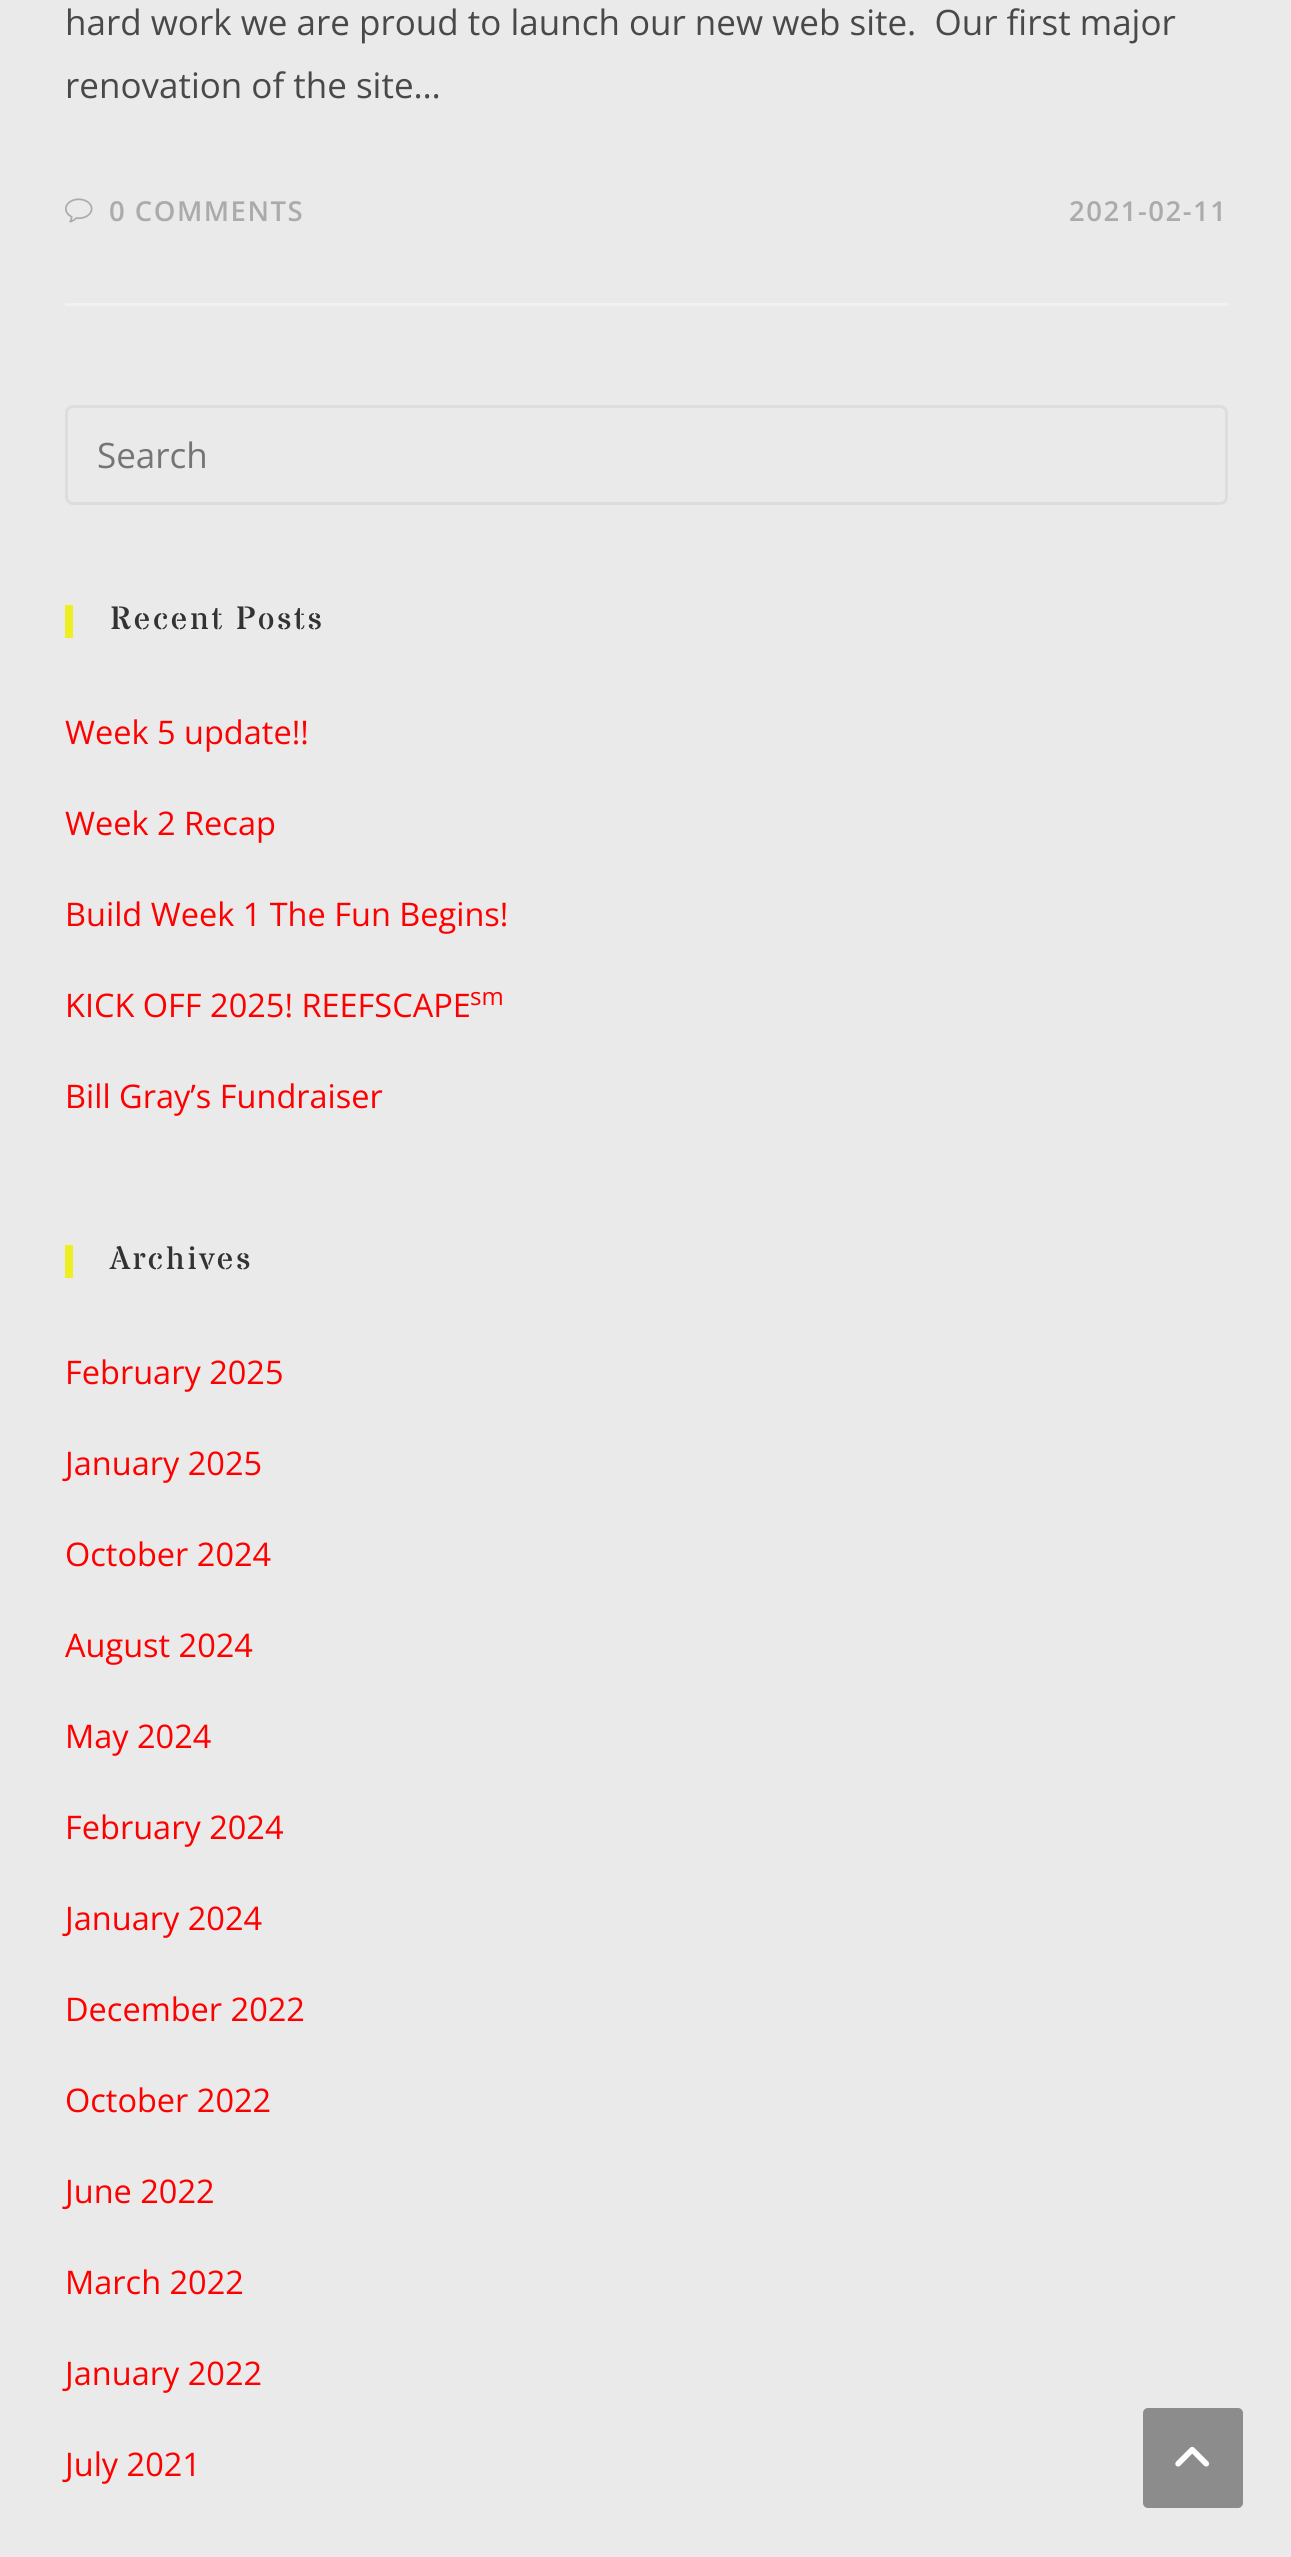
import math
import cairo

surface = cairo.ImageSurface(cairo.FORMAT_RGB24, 1291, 2557)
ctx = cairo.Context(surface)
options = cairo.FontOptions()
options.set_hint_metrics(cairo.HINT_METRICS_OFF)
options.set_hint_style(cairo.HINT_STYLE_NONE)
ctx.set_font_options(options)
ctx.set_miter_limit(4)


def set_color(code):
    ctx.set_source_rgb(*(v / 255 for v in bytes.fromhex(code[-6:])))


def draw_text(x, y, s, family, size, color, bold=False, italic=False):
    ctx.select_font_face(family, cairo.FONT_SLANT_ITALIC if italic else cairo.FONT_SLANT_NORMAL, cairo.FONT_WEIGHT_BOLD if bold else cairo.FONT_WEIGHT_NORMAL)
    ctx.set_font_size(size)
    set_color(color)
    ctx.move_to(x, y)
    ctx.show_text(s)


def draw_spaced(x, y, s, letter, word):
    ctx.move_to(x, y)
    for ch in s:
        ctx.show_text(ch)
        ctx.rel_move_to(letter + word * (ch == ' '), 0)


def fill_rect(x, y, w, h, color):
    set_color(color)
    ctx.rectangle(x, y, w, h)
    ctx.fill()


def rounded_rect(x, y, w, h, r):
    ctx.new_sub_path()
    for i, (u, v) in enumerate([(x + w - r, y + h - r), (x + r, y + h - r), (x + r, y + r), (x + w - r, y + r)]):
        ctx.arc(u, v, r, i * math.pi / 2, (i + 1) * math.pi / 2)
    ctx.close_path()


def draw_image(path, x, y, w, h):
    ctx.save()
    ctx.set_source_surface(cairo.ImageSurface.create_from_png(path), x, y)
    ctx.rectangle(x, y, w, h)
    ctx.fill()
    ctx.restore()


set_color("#eaeaea")
ctx.paint()
fill_rect(65, 303, 1163, 3, "#f1f1f1")
draw_text(65, 35, "hard work we are proud to launch our new web site.  Our first major", "Open Sans", 35, "#494949")
draw_text(65, 98, "renovation of the site…", "Open Sans", 35, "#494949")
draw_image("assets/img1.png", 65, 198, 28, 25)
ctx.select_font_face("Open Sans SemiBold")
ctx.set_font_size(27.5)
set_color("#ababab")
draw_spaced(109, 221, "0 COMMENTS", 1.5, 0)
draw_spaced(1069, 221, "2021-02-11", 1.5, 0)
rounded_rect(66.5, 406.5, 1160, 97, 6.5)
set_color("#dddddd")
ctx.set_line_width(3)
ctx.stroke()
draw_text(97, 468, "Search", "Open Sans", 35, "#757575")
fill_rect(65, 605, 8, 33, "#eeee22")
ctx.select_font_face("Stardos Stencil")
ctx.set_font_size(32.5)
set_color("#333333")
draw_spaced(110, 629, "Recent Posts", 2.5, 0)
draw_text(65, 744, "Week 5 update!!", "Open Sans", 32.5, "#ff0000")
draw_text(65, 835, "Week 2 Recap", "Open Sans", 32.5, "#ff0000")
draw_text(65, 926, "Build Week 1 The Fun Begins!", "Open Sans", 32.5, "#ff0000")
draw_text(65, 1017, "KICK OFF 2025! REEFSCAPE", "Open Sans", 32.5, "#ff0000")
draw_text(470, 1005, "sm", "Open Sans", 24, "#ff0000")
draw_text(65, 1108, "Bill Gray’s Fundraiser", "Open Sans", 32.5, "#ff0000")
fill_rect(65, 1245, 8, 33, "#eeee22")
ctx.select_font_face("Stardos Stencil")
set_color("#333333")
draw_spaced(110, 1269, "Archives", 2.5, 0)
draw_text(65, 1384, "February 2025", "Open Sans", 32.5, "#ff0000")
draw_text(65, 1475, "January 2025", "Open Sans", 32.5, "#ff0000")
draw_text(65, 1566, "October 2024", "Open Sans", 32.5, "#ff0000")
draw_text(65, 1657, "August 2024", "Open Sans", 32.5, "#ff0000")
draw_text(65, 1748, "May 2024", "Open Sans", 32.5, "#ff0000")
draw_text(65, 1839, "February 2024", "Open Sans", 32.5, "#ff0000")
draw_text(65, 1930, "January 2024", "Open Sans", 32.5, "#ff0000")
draw_text(65, 2021, "December 2022", "Open Sans", 32.5, "#ff0000")
draw_text(65, 2112, "October 2022", "Open Sans", 32.5, "#ff0000")
draw_text(65, 2203, "June 2022", "Open Sans", 32.5, "#ff0000")
draw_text(65, 2294, "March 2022", "Open Sans", 32.5, "#ff0000")
draw_text(65, 2385, "January 2022", "Open Sans", 32.5, "#ff0000")
draw_text(65, 2476, "July 2021", "Open Sans", 32.5, "#ff0000")
set_color("#8c8c8c")
rounded_rect(1143, 2408, 100, 100, 5)
ctx.fill()
draw_image("assets/img2.png", 1175, 2446, 34, 21)
surface.write_to_png("output.png")
